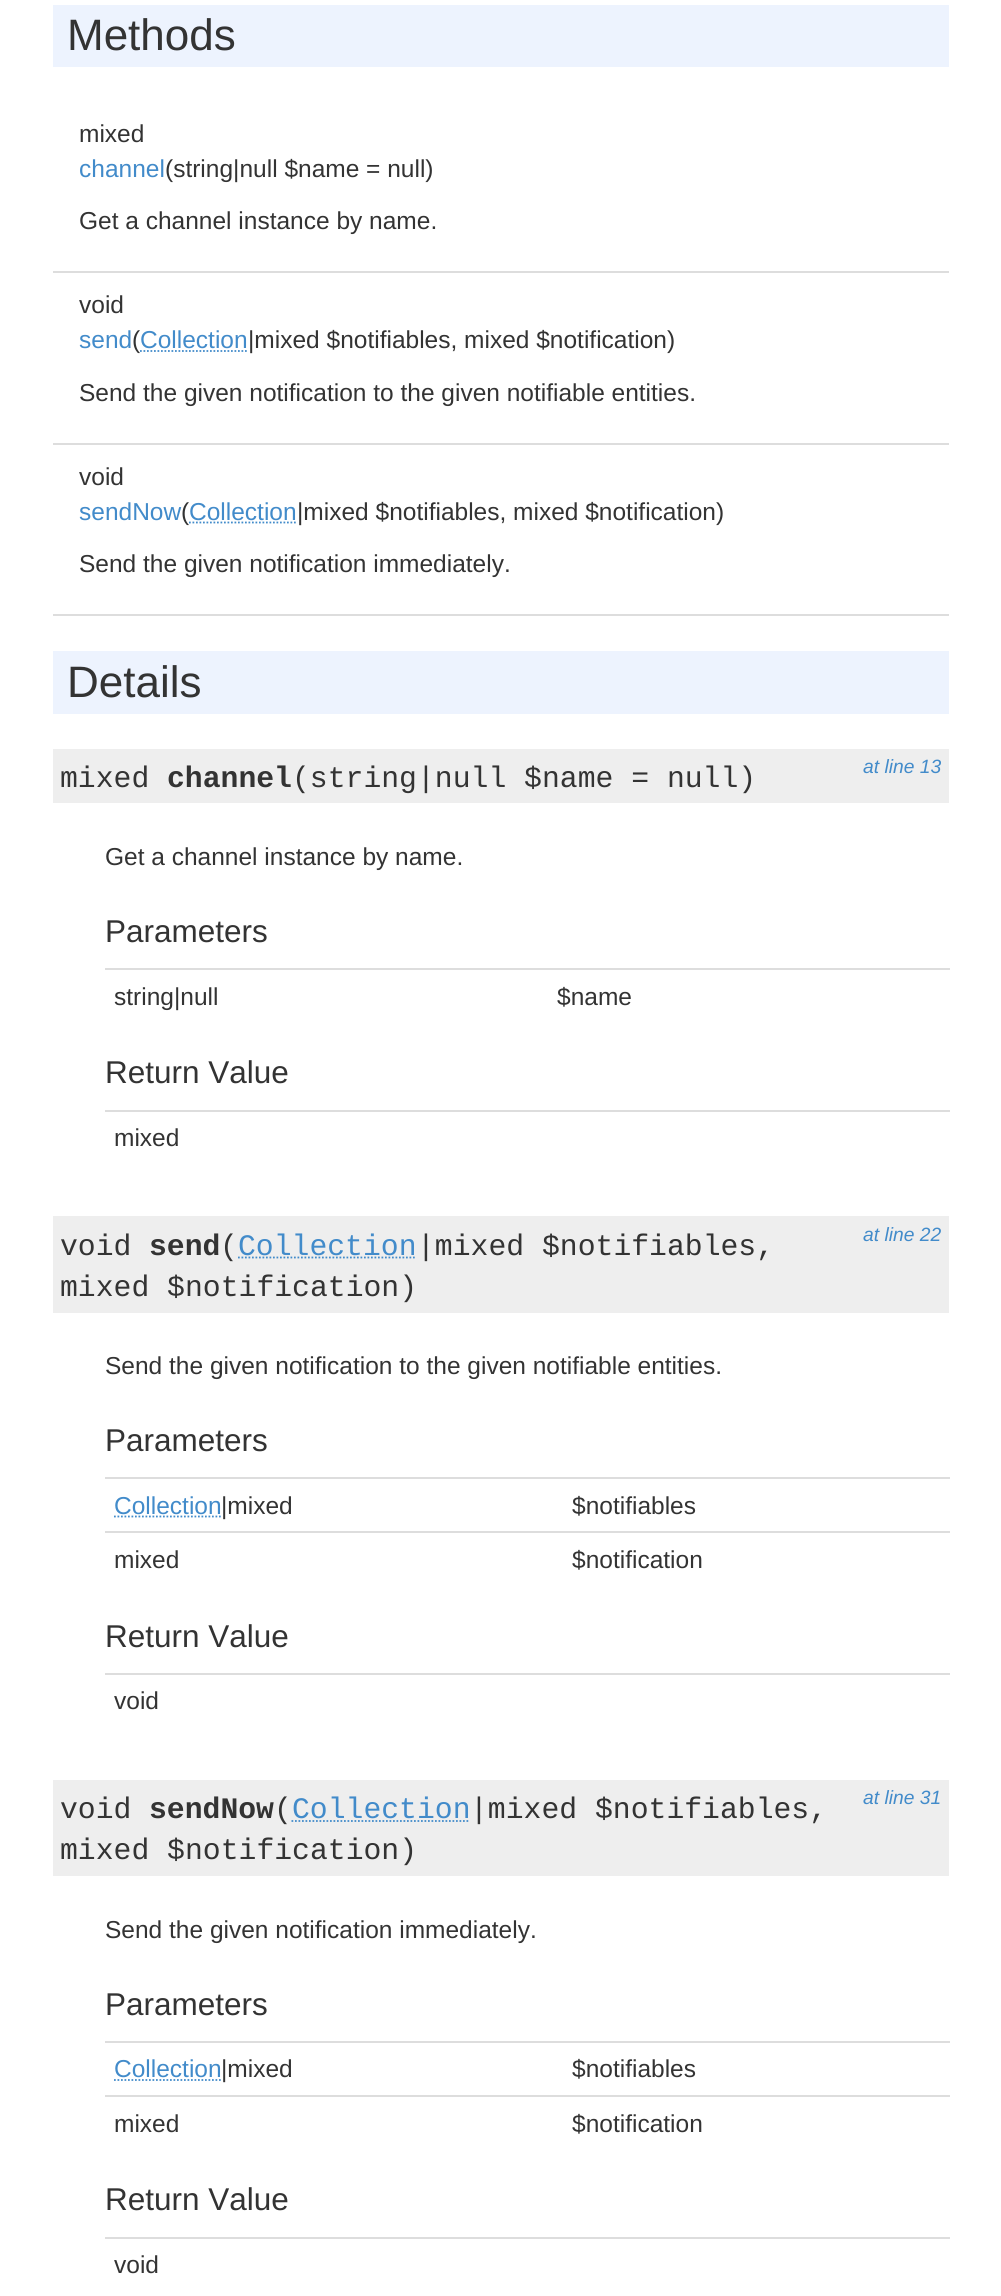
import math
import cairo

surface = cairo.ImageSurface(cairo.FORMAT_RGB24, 1001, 2296)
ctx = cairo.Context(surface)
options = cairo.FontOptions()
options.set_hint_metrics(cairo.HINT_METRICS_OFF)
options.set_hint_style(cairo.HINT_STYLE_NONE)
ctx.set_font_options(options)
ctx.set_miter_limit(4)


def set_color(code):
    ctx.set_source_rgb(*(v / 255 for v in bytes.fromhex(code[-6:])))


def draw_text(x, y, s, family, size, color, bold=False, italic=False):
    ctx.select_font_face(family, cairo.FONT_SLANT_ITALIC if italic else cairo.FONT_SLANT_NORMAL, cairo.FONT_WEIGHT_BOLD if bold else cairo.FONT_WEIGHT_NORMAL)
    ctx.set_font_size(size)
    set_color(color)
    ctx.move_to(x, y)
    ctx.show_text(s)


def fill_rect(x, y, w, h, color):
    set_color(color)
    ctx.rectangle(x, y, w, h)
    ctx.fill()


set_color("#ffffff")
ctx.paint()
fill_rect(53, 5, 896, 62, "#edf3fe")
draw_text(67, 50, "Methods", "Liberation Sans", 44, "#333333")
fill_rect(53, 271, 896, 2, "#dddddd")
draw_text(79, 142, "mixed", "Liberation Sans", 24.5, "#333333")
draw_text(79, 177, "channel", "Liberation Sans", 24.5, "#428bca")
draw_text(165, 177, "(string|null $name = null)", "Liberation Sans", 24.5, "#333333")
draw_text(79, 229, "Get a channel instance by name.", "Liberation Sans", 24.5, "#333333")
fill_rect(53, 443, 896, 2, "#dddddd")
draw_text(79, 313, "void", "Liberation Sans", 24.5, "#333333")
draw_text(79, 348, "send", "Liberation Sans", 24.5, "#428bca")
draw_text(132, 348, "(", "Liberation Sans", 24.5, "#333333")
draw_text(140, 348, "Collection", "Liberation Sans", 24.5, "#428bca")
ctx.new_path()
ctx.move_to(140, 351)
ctx.line_to(247.5, 351)
ctx.set_line_width(1.8)
ctx.set_dash([1.75, 1.75])
ctx.stroke()
draw_text(248, 348, "|mixed $notifiables, mixed $notification)", "Liberation Sans", 24.5, "#333333")
draw_text(79, 401, "Send the given notification to the given notifiable entities.", "Liberation Sans", 24.5, "#333333")
fill_rect(53, 614, 896, 2, "#dddddd")
draw_text(79, 485, "void", "Liberation Sans", 24.5, "#333333")
draw_text(79, 520, "sendNow", "Liberation Sans", 24.5, "#428bca")
draw_text(181, 520, "(", "Liberation Sans", 24.5, "#333333")
draw_text(189, 520, "Collection", "Liberation Sans", 24.5, "#428bca")
ctx.new_path()
ctx.move_to(189, 522.5)
ctx.line_to(296.5, 522.5)
ctx.stroke()
draw_text(297, 520, "|mixed $notifiables, mixed $notification)", "Liberation Sans", 24.5, "#333333")
draw_text(79, 572, "Send the given notification immediately.", "Liberation Sans", 24.5, "#333333")
fill_rect(53, 651, 896, 63, "#edf3fe")
draw_text(67, 697, "Details", "Liberation Sans", 44, "#333333")
fill_rect(53, 749, 896, 54, "#eeeeee")
draw_text(60, 787, "mixed", "Liberation Mono", 29.75, "#333333")
draw_text(167, 787, "channel", "Liberation Mono", 29.75, "#333333", bold=True)
draw_text(292, 787, "(string|null $name = null)", "Liberation Mono", 29.75, "#333333")
draw_text(863, 773, "at line 13", "Liberation Sans", 19.25, "#428bca", italic=True)
draw_text(105, 865, "Get a channel instance by name.", "Liberation Sans", 24.5, "#333333")
draw_text(105, 942, "Parameters", "Liberation Sans", 31.5, "#333333")
fill_rect(105, 968, 845, 2, "#dddddd")
draw_text(114, 1005, "string|null", "Liberation Sans", 24.5, "#333333")
draw_text(557, 1005, "$name", "Liberation Sans", 24.5, "#333333")
draw_text(105, 1083, "Return Value", "Liberation Sans", 31.5, "#333333")
fill_rect(105, 1110, 845, 2, "#dddddd")
draw_text(114, 1146, "mixed", "Liberation Sans", 24.5, "#333333")
fill_rect(53, 1216, 896, 97, "#eeeeee")
draw_text(60, 1255, "void", "Liberation Mono", 29.75, "#333333")
draw_text(149, 1255, "send", "Liberation Mono", 29.75, "#333333", bold=True)
draw_text(220, 1255, "(", "Liberation Mono", 29.75, "#333333")
ctx.new_path()
ctx.move_to(238, 1257.5)
ctx.line_to(416.5, 1257.5)
set_color("#428bca")
ctx.stroke()
draw_text(238, 1255, "Collection", "Liberation Mono", 29.75, "#428bca")
draw_text(417, 1255, "|mixed $notifiables,", "Liberation Mono", 29.75, "#333333")
draw_text(863, 1241, "at line 22", "Liberation Sans", 19.25, "#428bca", italic=True)
draw_text(60, 1296, "mixed $notification)", "Liberation Mono", 29.75, "#333333")
draw_text(105, 1374, "Send the given notification to the given notifiable entities.", "Liberation Sans", 24.5, "#333333")
draw_text(105, 1451, "Parameters", "Liberation Sans", 31.5, "#333333")
fill_rect(105, 1477, 845, 2, "#dddddd")
draw_text(114, 1514, "Collection", "Liberation Sans", 24.5, "#428bca")
ctx.new_path()
ctx.move_to(114, 1516.5)
ctx.line_to(221.5, 1516.5)
ctx.stroke()
draw_text(221, 1514, "|mixed", "Liberation Sans", 24.5, "#333333")
draw_text(572, 1514, "$notifiables", "Liberation Sans", 24.5, "#333333")
fill_rect(105, 1531, 845, 2, "#dddddd")
draw_text(114, 1568, "mixed", "Liberation Sans", 24.5, "#333333")
draw_text(572, 1568, "$notification", "Liberation Sans", 24.5, "#333333")
draw_text(105, 1647, "Return Value", "Liberation Sans", 31.5, "#333333")
fill_rect(105, 1673, 845, 2, "#dddddd")
draw_text(114, 1709, "void", "Liberation Sans", 24.5, "#333333")
fill_rect(53, 1780, 896, 96, "#eeeeee")
draw_text(60, 1818, "void", "Liberation Mono", 29.75, "#333333")
draw_text(149, 1818, "sendNow", "Liberation Mono", 29.75, "#333333", bold=True)
draw_text(274, 1818, "(", "Liberation Mono", 29.75, "#333333")
ctx.new_path()
ctx.move_to(291.5, 1821)
ctx.line_to(470, 1821)
set_color("#428bca")
ctx.stroke()
draw_text(292, 1818, "Collection", "Liberation Mono", 29.75, "#428bca")
draw_text(470, 1818, "|mixed $notifiables,", "Liberation Mono", 29.75, "#333333")
draw_text(863, 1804, "at line 31", "Liberation Sans", 19.25, "#428bca", italic=True)
draw_text(60, 1859, "mixed $notification)", "Liberation Mono", 29.75, "#333333")
draw_text(105, 1938, "Send the given notification immediately.", "Liberation Sans", 24.5, "#333333")
draw_text(105, 2015, "Parameters", "Liberation Sans", 31.5, "#333333")
fill_rect(105, 2041, 845, 2, "#dddddd")
draw_text(114, 2077, "Collection", "Liberation Sans", 24.5, "#428bca")
ctx.new_path()
ctx.move_to(114, 2080)
ctx.line_to(221.5, 2080)
ctx.stroke()
draw_text(221, 2077, "|mixed", "Liberation Sans", 24.5, "#333333")
draw_text(572, 2077, "$notifiables", "Liberation Sans", 24.5, "#333333")
fill_rect(105, 2095, 845, 2, "#dddddd")
draw_text(114, 2132, "mixed", "Liberation Sans", 24.5, "#333333")
draw_text(572, 2132, "$notification", "Liberation Sans", 24.5, "#333333")
draw_text(105, 2210, "Return Value", "Liberation Sans", 31.5, "#333333")
fill_rect(105, 2237, 845, 2, "#dddddd")
draw_text(114, 2273, "void", "Liberation Sans", 24.5, "#333333")
surface.write_to_png("output.png")
